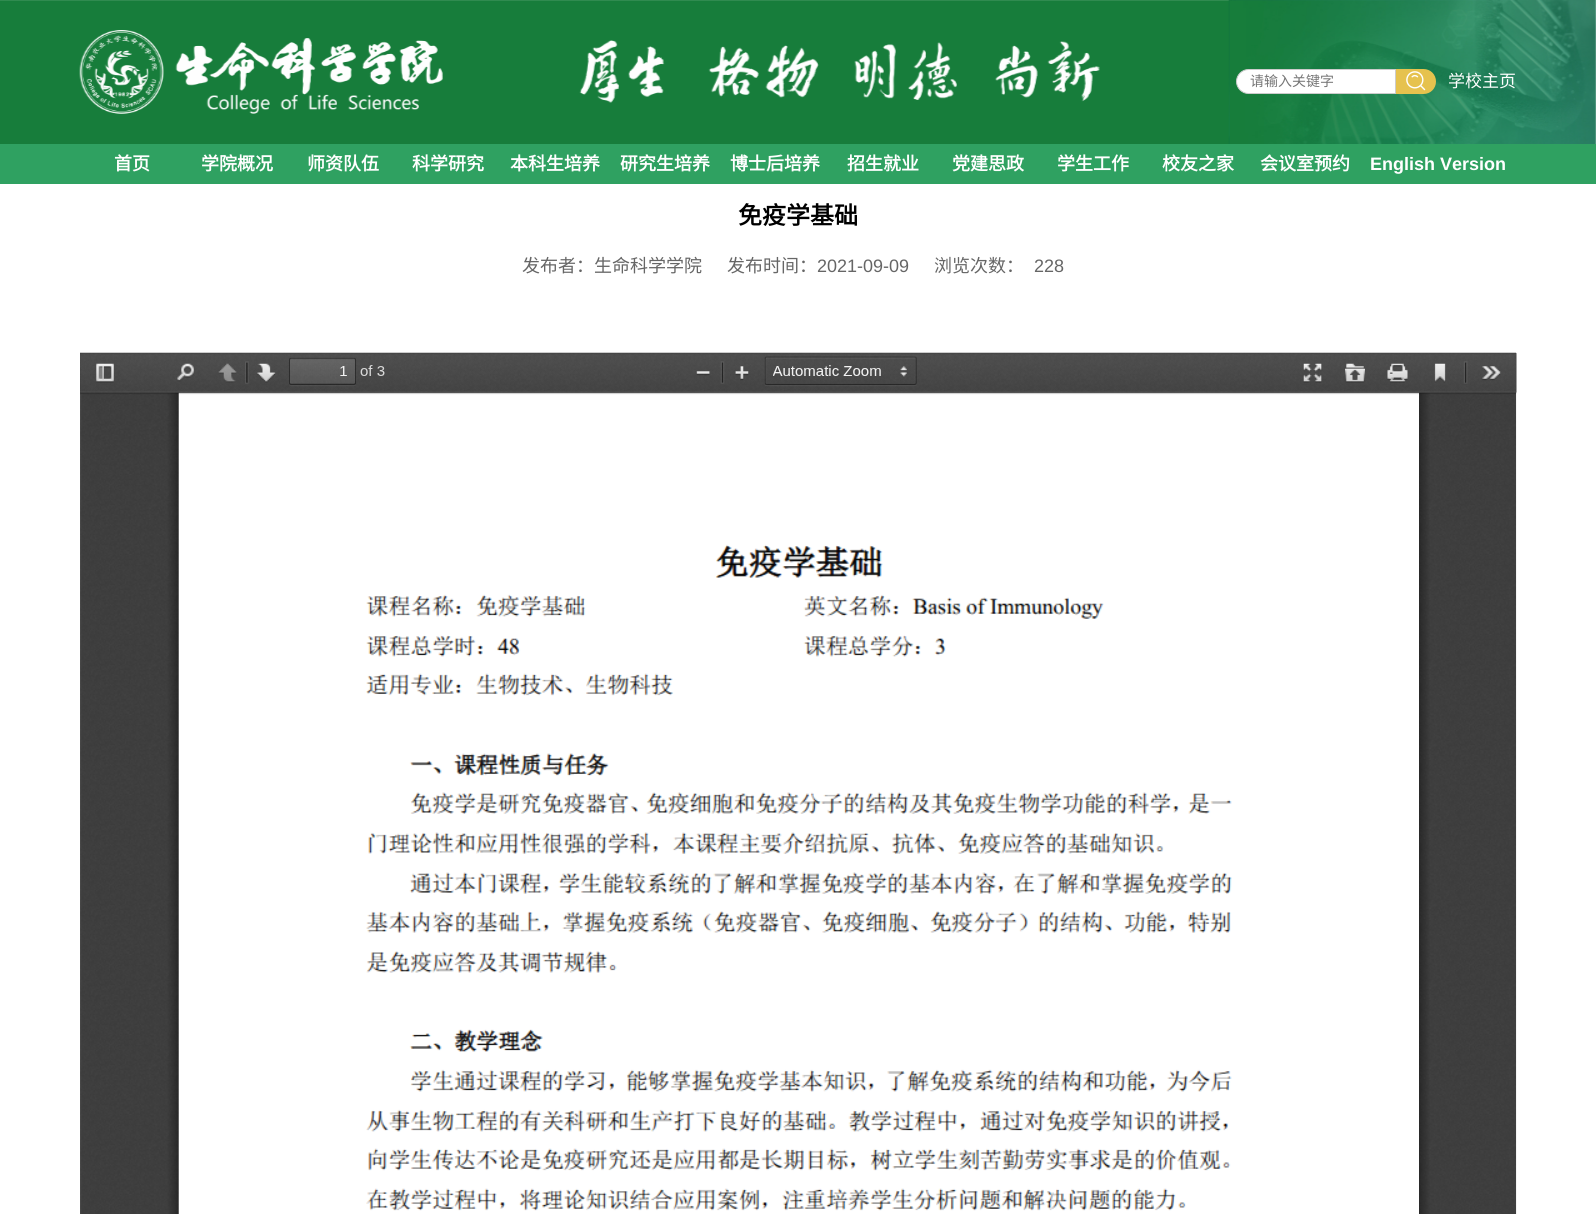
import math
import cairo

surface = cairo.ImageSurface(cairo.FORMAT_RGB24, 1596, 1214)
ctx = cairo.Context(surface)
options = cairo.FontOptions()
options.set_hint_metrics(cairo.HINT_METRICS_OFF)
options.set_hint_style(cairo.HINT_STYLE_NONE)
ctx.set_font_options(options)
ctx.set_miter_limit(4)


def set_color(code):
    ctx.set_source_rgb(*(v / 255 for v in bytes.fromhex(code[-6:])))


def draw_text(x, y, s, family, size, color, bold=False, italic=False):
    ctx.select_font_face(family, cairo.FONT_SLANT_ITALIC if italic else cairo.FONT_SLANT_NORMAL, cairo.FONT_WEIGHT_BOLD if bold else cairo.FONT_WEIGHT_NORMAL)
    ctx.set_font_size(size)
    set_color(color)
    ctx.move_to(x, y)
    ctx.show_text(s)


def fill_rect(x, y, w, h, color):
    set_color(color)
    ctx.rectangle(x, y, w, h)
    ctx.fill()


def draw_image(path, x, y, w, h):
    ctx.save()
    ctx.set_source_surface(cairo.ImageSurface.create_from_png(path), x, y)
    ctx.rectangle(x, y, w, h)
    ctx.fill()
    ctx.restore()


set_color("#ffffff")
ctx.paint()
draw_image("assets/img1.png", 0, 0, 1596, 144)
draw_image("assets/img2.png", 79, 30, 364, 84)
draw_image("assets/img3.png", 579, 40, 521, 63)
set_color("#ffffff")
ctx.new_path()
ctx.move_to(1248.5, 69.5)
ctx.line_to(1395.5, 69.5)
ctx.line_to(1395.5, 93.5)
ctx.line_to(1248.5, 93.5)
ctx.curve_to(1242, 93.5, 1236.5, 88, 1236.5, 81.5)
ctx.curve_to(1236.5, 75, 1242, 69.5, 1248.5, 69.5)
ctx.close_path()
ctx.fill_preserve()
set_color("#cccccc")
ctx.set_line_width(1)
ctx.stroke()
draw_text(1250, 86, "请输入关键字", "Noto Sans CJK SC", 14, "#757575")
set_color("#e6c24e")
ctx.new_path()
ctx.move_to(1396, 69)
ctx.line_to(1423.5, 69)
ctx.curve_to(1430.5, 69, 1436, 74.5, 1436, 81.5)
ctx.curve_to(1436, 88.5, 1430.5, 94, 1423.5, 94)
ctx.line_to(1396, 94)
ctx.close_path()
ctx.fill()
draw_image("assets/img4.png", 1406, 71, 20, 20)
draw_text(1448, 87, "学校主页", "Noto Sans CJK SC", 17, "#ffffff")
fill_rect(0, 144, 1596, 40, "#2fa161")
draw_text(114, 170, "首页", "Noto Sans CJK SC", 18, "#ffffff", bold=True)
draw_text(201, 170, "学院概况", "Noto Sans CJK SC", 18, "#ffffff", bold=True)
draw_text(307, 170, "师资队伍", "Noto Sans CJK SC", 18, "#ffffff", bold=True)
draw_text(412, 170, "科学研究", "Noto Sans CJK SC", 18, "#ffffff", bold=True)
draw_text(510, 170, "本科生培养", "Noto Sans CJK SC", 18, "#ffffff", bold=True)
draw_text(620, 170, "研究生培养", "Noto Sans CJK SC", 18, "#ffffff", bold=True)
draw_text(730, 170, "博士后培养", "Noto Sans CJK SC", 18, "#ffffff", bold=True)
draw_text(847, 170, "招生就业", "Noto Sans CJK SC", 18, "#ffffff", bold=True)
draw_text(952, 170, "党建思政", "Noto Sans CJK SC", 18, "#ffffff", bold=True)
draw_text(1057, 170, "学生工作", "Noto Sans CJK SC", 18, "#ffffff", bold=True)
draw_text(1162, 170, "校友之家", "Noto Sans CJK SC", 18, "#ffffff", bold=True)
draw_text(1260, 170, "会议室预约", "Noto Sans CJK SC", 18, "#ffffff", bold=True)
draw_text(1370, 170, "English Version", "Liberation Sans", 18, "#ffffff", bold=True)
draw_text(738, 224, "免疫学基础", "Noto Sans CJK SC", 24, "#000000", bold=True)
draw_text(522, 272, "发布者：生命科学学院", "Noto Sans CJK SC", 18, "#666666")
draw_text(727, 272, "发布时间：", "Noto Sans CJK SC", 18, "#666666")
draw_text(817, 272, "2021-09-09", "Liberation Sans", 18, "#666666")
draw_text(934, 272, "浏览次数：", "Noto Sans CJK SC", 18, "#666666")
draw_text(1034, 272, "228", "Liberation Sans", 18, "#666666")
draw_image("assets/img5.png", 80, 352, 1437, 862)
surface.write_to_png("output.png")
